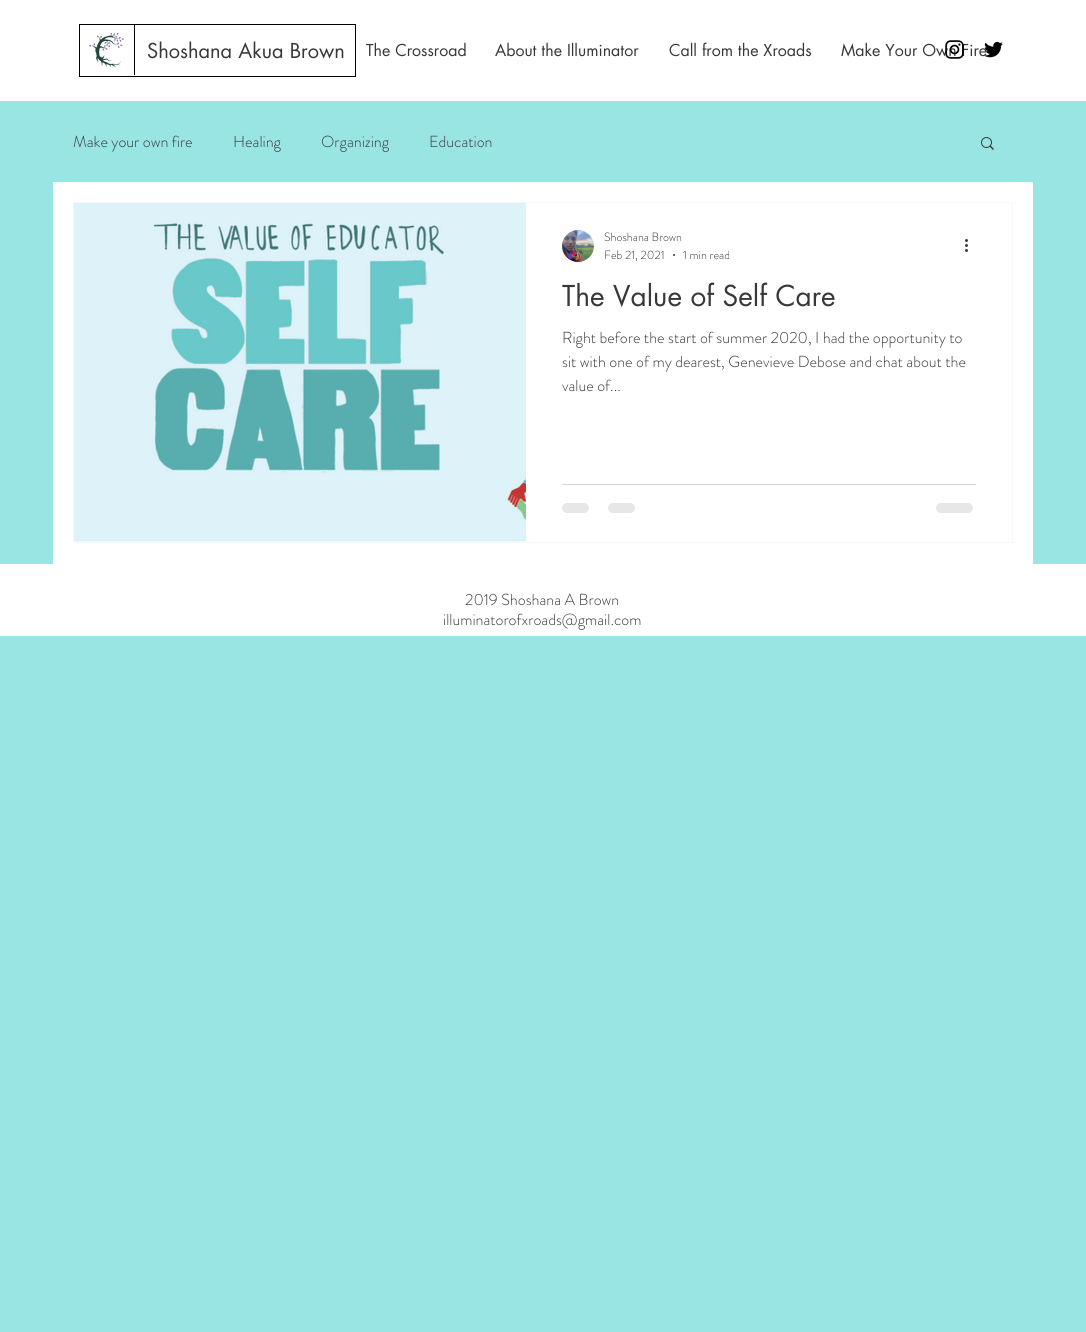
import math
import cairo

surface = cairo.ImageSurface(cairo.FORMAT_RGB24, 1086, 1332)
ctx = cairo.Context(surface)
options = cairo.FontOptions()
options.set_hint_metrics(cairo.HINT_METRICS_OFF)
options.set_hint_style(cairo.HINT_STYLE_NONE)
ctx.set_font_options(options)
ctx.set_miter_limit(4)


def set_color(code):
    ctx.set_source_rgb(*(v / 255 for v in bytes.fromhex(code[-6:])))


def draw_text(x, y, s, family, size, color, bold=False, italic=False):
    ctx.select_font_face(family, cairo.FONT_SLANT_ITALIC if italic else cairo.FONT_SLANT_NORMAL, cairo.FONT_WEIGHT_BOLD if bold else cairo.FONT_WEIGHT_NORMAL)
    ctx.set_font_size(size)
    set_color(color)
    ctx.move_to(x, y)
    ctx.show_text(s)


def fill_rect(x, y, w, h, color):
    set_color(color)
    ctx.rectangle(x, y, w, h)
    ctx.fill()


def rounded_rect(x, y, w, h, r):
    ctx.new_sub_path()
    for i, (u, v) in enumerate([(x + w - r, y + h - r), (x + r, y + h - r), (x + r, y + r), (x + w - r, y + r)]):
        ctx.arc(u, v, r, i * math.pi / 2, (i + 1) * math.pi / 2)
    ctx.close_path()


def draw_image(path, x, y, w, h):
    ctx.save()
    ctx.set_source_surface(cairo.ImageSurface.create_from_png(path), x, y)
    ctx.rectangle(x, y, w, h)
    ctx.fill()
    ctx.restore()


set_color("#99e5e4")
ctx.paint()
fill_rect(0, 0, 1086, 101, "#ffffff")
ctx.rectangle(79.5, 24.5, 276, 52)
set_color("#000000")
ctx.set_line_width(1)
ctx.stroke()
draw_image("assets/img1.png", 89, 32, 35, 36)
fill_rect(134, 25, 1, 50, "#000000")
draw_text(147, 58, "Shoshana Akua Brown", "futura", 20, "#383838")
draw_text(841, 56, "Make Your Own Fire", "futura", 16, "#383838")
draw_image("assets/img2.png", 945, 40, 19, 19)
draw_image("assets/img3.png", 984, 41, 19, 17)
draw_text(366, 56, "The Crossroad", "futura", 16, "#383838")
draw_text(495, 56, "About the Illuminator", "futura", 16, "#383838")
draw_text(669, 56, "Call from the Xroads", "futura", 16, "#383838")
fill_rect(53, 182, 980, 382, "#ffffff")
draw_text(73, 147, "Make your own fire", "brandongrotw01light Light", 16, "#383838")
draw_text(233, 147, "Healing", "brandongrotw01light Light", 16, "#383838")
draw_text(321, 147, "Organizing", "brandongrotw01light Light", 16, "#383838")
draw_text(429, 147, "Education", "brandongrotw01light Light", 16, "#383838")
draw_image("assets/img4.png", 981, 137, 13, 13)
ctx.rectangle(73.5, 202.5, 939, 340)
set_color("#f8f8f8")
ctx.stroke()
draw_image("assets/img5.png", 74, 203, 452, 339)
draw_image("assets/img6.png", 562, 230, 32, 32)
draw_text(604, 241, "Shoshana Brown", "brandongrotw01light Light", 12, "#383838")
draw_text(604, 259, "Feb 21, 2021", "brandongrotw01light Light", 12, "#383838")
ctx.new_path()
ctx.arc(674, 255, 1, 0, 2 * math.pi)
ctx.fill()
draw_text(683, 259, "1 min read", "brandongrotw01light Light", 12, "#383838")
draw_image("assets/img7.png", 965, 239, 3, 13)
draw_text(562, 306, "The Value of Self Care", "futura", 28, "#383838")
draw_text(562, 343, "Right before the start of summer 2020, I had the opportunity to", "brandongrotw01light Light", 16, "#383838")
draw_text(562, 367, "sit with one of my dearest, Genevieve Debose and chat about the", "brandongrotw01light Light", 16, "#383838")
draw_text(562, 391, "value of...", "brandongrotw01light Light", 16, "#383838")
fill_rect(562, 484, 414, 1, "#d7d7d7")
set_color("#e7e7e7")
rounded_rect(562, 503, 27, 10, 5)
ctx.fill()
rounded_rect(608, 503, 27, 10, 5)
ctx.fill()
rounded_rect(936, 503, 37, 10, 5)
ctx.fill()
fill_rect(0, 564, 1086, 72, "#ffffff")
draw_text(465, 605, "2019 Shoshana A Brown", "brandongrotw01light Light", 16, "#383838")
draw_text(443, 625, "illuminatorofxroads@gmail.com", "brandongrotw01light Light", 16, "#383838")
surface.write_to_png("output.png")
